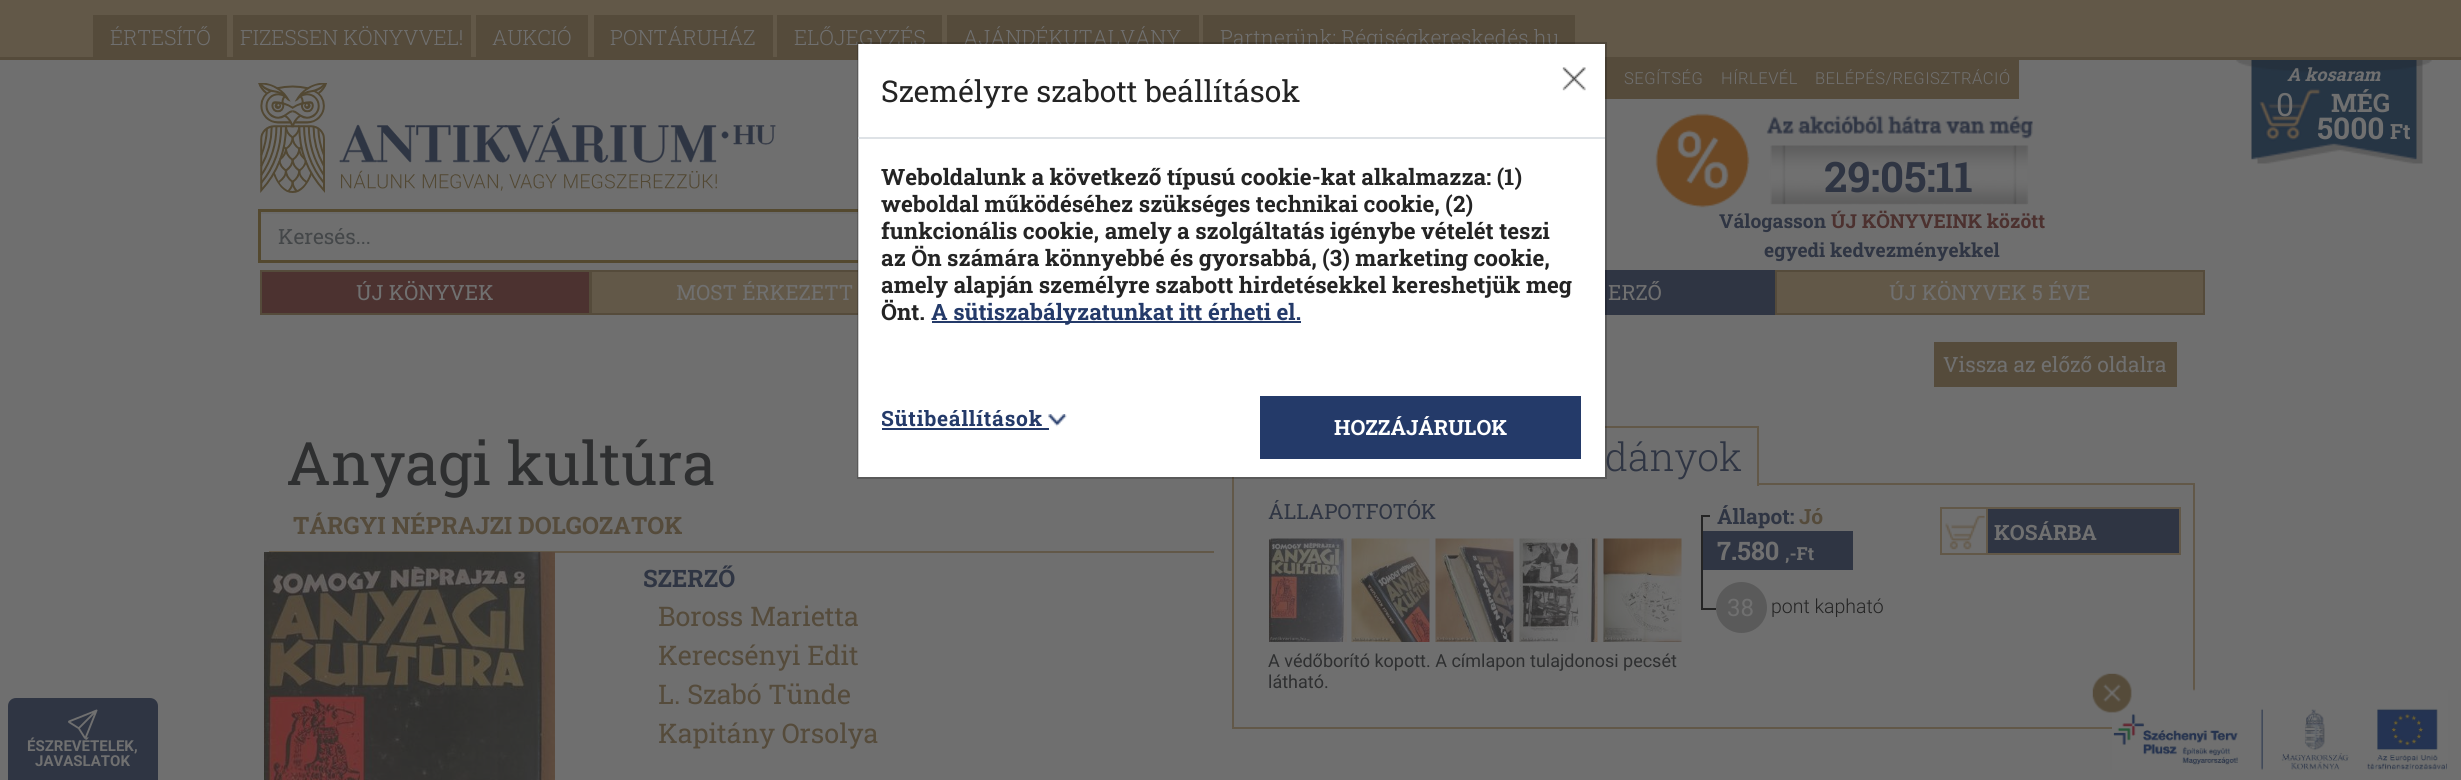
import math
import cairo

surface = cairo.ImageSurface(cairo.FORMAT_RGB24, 2461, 780)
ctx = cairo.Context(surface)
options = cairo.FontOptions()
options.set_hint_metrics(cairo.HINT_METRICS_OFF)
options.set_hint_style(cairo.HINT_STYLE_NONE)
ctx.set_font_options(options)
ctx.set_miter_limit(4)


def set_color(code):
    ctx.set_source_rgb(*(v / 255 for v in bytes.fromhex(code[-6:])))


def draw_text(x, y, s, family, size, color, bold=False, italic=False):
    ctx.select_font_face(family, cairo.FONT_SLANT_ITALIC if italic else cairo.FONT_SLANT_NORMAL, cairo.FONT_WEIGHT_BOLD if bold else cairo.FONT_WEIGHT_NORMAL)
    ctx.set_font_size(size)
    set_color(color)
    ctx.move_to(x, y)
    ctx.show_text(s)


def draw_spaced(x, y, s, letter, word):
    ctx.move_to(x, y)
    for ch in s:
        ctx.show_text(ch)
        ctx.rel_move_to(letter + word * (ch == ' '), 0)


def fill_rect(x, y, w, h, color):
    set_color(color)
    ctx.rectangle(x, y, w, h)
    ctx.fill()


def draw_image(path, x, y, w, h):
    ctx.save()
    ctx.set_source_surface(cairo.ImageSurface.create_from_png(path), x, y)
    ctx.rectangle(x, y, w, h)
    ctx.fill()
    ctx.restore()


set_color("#6f6f6f")
ctx.paint()
fill_rect(0, 0, 2461, 57, "#625848")
fill_rect(0, 57, 2461, 3, "#554b3b")
fill_rect(93, 15, 134, 42, "#554b3b")
draw_text(110, 45, "ÉRTESÍTŐ", "Roboto Slab Light", 21, "#707070")
fill_rect(233, 15, 238, 42, "#554b3b")
draw_text(240, 45, "FIZESSEN KÖNYVVEL!", "Roboto Slab Light", 21, "#707070")
fill_rect(476, 15, 112, 42, "#554b3b")
draw_text(492, 45, "AUKCIÓ", "Roboto Slab Light", 21, "#707070")
fill_rect(594, 15, 179, 42, "#554b3b")
draw_text(610, 45, "PONTÁRUHÁZ", "Roboto Slab Light", 21, "#707070")
fill_rect(777, 15, 165, 42, "#554b3b")
draw_text(794, 45, "ELŐJEGYZÉS", "Roboto Slab Light", 21, "#707070")
fill_rect(947, 15, 252, 29, "#554b3b")
draw_text(963, 45, "AJÁNDÉKUTALVÁNY", "Roboto Slab Light", 21, "#707070")
fill_rect(1203, 15, 372, 29, "#554b3b")
draw_text(1220, 45, "Partnerünk: Régiségkereskedés.hu", "Roboto Slab Light", 21, "#707070")
fill_rect(1605, 60, 414, 39, "#554b3b")
ctx.select_font_face("Roboto Light")
ctx.set_font_size(16.5)
set_color("#707070")
draw_spaced(1624, 84, "SEGÍTSÉG", 0.5, 0)
draw_spaced(1721, 84, "HÍRLEVÉL", 0.5, 0)
draw_spaced(1815, 84, "BELÉPÉS/REGISZTRÁCIÓ", 0.5, 0)
set_color("#4c3230")
ctx.rectangle(261, 271, 329, 43)
ctx.fill_preserve()
set_color("#554b3b")
ctx.stroke()
draw_text(356, 300, "ÚJ KÖNYVEK", "Roboto Slab", 21, "#707070")
fill_rect(592, 272, 266, 41, "#625848")
ctx.rectangle(591, 271, 349, 43)
set_color("#554b3b")
ctx.stroke()
draw_text(676, 300, "MOST ÉRKEZETT", "Roboto Slab", 21, "#707070")
fill_rect(1605, 270, 170, 45, "#2f3543")
draw_text(1608, 300, "ERZŐ", "Roboto Slab", 21, "#707070")
set_color("#625848")
ctx.rectangle(1776, 271, 428, 43)
ctx.fill_preserve()
set_color("#554b3b")
ctx.stroke()
draw_text(1889, 300, "ÚJ KÖNYVEK 5 ÉVE", "Roboto Slab", 21, "#707070")
draw_image("assets/img1.png", 2236, 60, 196, 104)
draw_text(2287, 81, "A kosaram", "Roboto Slab", 18, "#707070", bold=True, italic=True)
draw_text(2276, 116, "0", "Roboto", 32, "#707070")
draw_text(2331, 112, "MÉG", "Roboto Slab", 25.5, "#707070", bold=True)
draw_text(2317, 139, "5000", "Roboto Slab", 30, "#707070", bold=True)
draw_text(2390, 139, "Ft", "Roboto Slab", 21, "#707070", bold=True)
fill_rect(261, 212, 597, 2, "#6b6b6b")
ctx.rectangle(259.5, 210.5, 632, 51)
set_color("#54492f")
ctx.set_line_width(3)
ctx.stroke()
fill_rect(858, 44, 747, 433, "#ffffff")
fill_rect(1605, 426, 153, 2, "#625848")
ctx.rectangle(1233, 484, 961, 244)
ctx.set_line_width(2)
ctx.stroke()
fill_rect(1232, 477, 2, 9, "#625848")
draw_text(1605, 471, "dányok", "Roboto Slab Light", 39, "#2f3543")
ctx.rectangle(858, 43, 748, 435)
ctx.set_source_rgba(0, 0, 0, 0.2)
ctx.stroke()
fill_rect(858, 137, 747, 2, "#dee2e6")
draw_text(881, 102, "Személyre szabott beállítások", "Roboto Slab", 30, "#242424")
draw_image("assets/img2.png", 1562, 67, 24, 24)
draw_text(881, 185, "Weboldalunk a következő típusú cookie-kat alkalmazza: (1)", "Roboto Slab", 22.5, "#242424", bold=True)
draw_text(881, 212, "weboldal működéséhez szükséges technikai cookie, (2)", "Roboto Slab", 22.5, "#242424", bold=True)
draw_text(881, 239, "funkcionális cookie, amely a szolgáltatás igénybe vételét teszi", "Roboto Slab", 22.5, "#242424", bold=True)
draw_text(881, 266, "az Ön számára könnyebbé és gyorsabbá, (3) marketing cookie,", "Roboto Slab", 22.5, "#242424", bold=True)
draw_text(881, 293, "amely alapján személyre szabott hirdetésekkel kereshetjük meg", "Roboto Slab", 22.5, "#242424", bold=True)
draw_text(881, 320, "Önt.", "Roboto Slab", 22.5, "#242424", bold=True)
fill_rect(932, 321, 369, 2, "#243a69")
draw_text(931, 320, "A sütiszabályzatunkat itt érheti el.", "Roboto Slab", 22.5, "#243a69", bold=True)
ctx.set_font_size(21)
draw_spaced(881, 426, "Sütibeállítások", 0.75, 0)
fill_rect(882, 428, 167, 2, "#243a69")
draw_image("assets/img3.png", 1048, 414, 19, 13)
fill_rect(1260, 396, 321, 63, "#243a69")
draw_text(1334, 435, "HOZZÁJÁRULOK", "Roboto Slab", 21, "#ffffff", bold=True)
draw_image("assets/img4.png", 258, 83, 518, 110)
draw_text(278, 244, "Keresés...", "Roboto Slab", 21, "#444749")
draw_image("assets/img5.png", 1655, 113, 378, 95)
draw_text(1824, 192, "29:05:11", "Roboto Slab", 42, "#2f3543", bold=True)
draw_text(1719, 228, "Válogasson", "Roboto Slab", 19.25, "#2f3543", bold=True)
draw_text(1831, 228, "ÚJ KÖNYVEINK között", "Roboto Slab", 19.25, "#4c312f", bold=True)
draw_text(1764, 257, "egyedi kedvezményekkel", "Roboto Slab", 19.25, "#2f3543", bold=True)
ctx.new_path()
ctx.move_to(16, 698)
ctx.line_to(150, 698)
ctx.curve_to(154.5, 698, 158, 701.5, 158, 706)
ctx.line_to(158, 780)
ctx.line_to(8, 780)
ctx.line_to(8, 706)
ctx.curve_to(8, 701.5, 11.5, 698, 16, 698)
ctx.close_path()
ctx.fill()
draw_image("assets/img6.png", 68, 709, 30, 30)
draw_text(27, 751, "ÉSZREVÉTELEK,", "Roboto", 15, "#707070", bold=True)
draw_text(35, 766, "JAVASLATOK", "Roboto", 15, "#707070", bold=True)
fill_rect(1934, 342, 243, 45, "#554b3b")
draw_text(1943, 372, "Vissza az előző oldalra", "Roboto Slab", 21, "#707070")
draw_text(286, 485, "Anyagi kultúra", "Roboto Slab", 60, "#2e2f30")
draw_text(293, 534, "TÁRGYI NÉPRAJZI DOLGOZATOK", "Roboto Slab", 24, "#554b3b", bold=True)
fill_rect(269, 551, 945, 2, "#625848")
draw_image("assets/img7.png", 264, 552, 291, 228)
draw_text(643, 587, "SZERZŐ", "Roboto Slab", 24, "#2f3543", bold=True)
draw_text(658, 626, "Boross Marietta", "Roboto Slab", 27, "#554b3b")
draw_text(658, 665, "Kerecsényi Edit", "Roboto Slab", 27, "#554b3b")
draw_text(658, 704, "L. Szabó Tünde", "Roboto Slab", 27, "#554b3b")
draw_text(658, 743, "Kapitány Orsolya", "Roboto Slab", 27, "#554b3b")
fill_rect(1234, 483, 523, 2, "#6f6f6f")
fill_rect(1757, 426, 2, 60, "#625848")
draw_text(1268, 519, "ÁLLAPOTFOTÓK", "Roboto Slab", 21, "#2f3543")
draw_image("assets/img8.png", 1269, 538, 78, 104)
draw_image("assets/img9.png", 1351, 538, 79, 104)
draw_image("assets/img10.png", 1435, 538, 79, 104)
draw_image("assets/img11.png", 1519, 538, 79, 104)
draw_image("assets/img12.png", 1603, 538, 79, 104)
draw_text(1268, 667, "A védőborító kopott. A címlapon tulajdonosi pecsét", "Roboto", 18, "#2e2f30")
draw_text(1268, 688, "látható.", "Roboto", 18, "#2e2f30")
draw_text(1717, 524, "Állapot:", "Roboto Slab", 21, "#2f3543", bold=True)
draw_text(1799, 524, "Jó", "Roboto Slab", 21, "#554b3b", bold=True)
fill_rect(1701, 515, 9, 2, "#242424")
fill_rect(1701, 608, 15, 2, "#242424")
fill_rect(1701, 515, 2, 94, "#242424")
fill_rect(1703, 531, 150, 39, "#2f3543")
draw_text(1717, 560, "7.580", "Roboto Slab", 25.5, "#707070", bold=True)
draw_text(1785, 560, ",-Ft", "Roboto Slab", 18, "#707070", bold=True)
set_color("#5a5a5a")
ctx.new_path()
ctx.arc(1741.5, 607.5, 25.5, 0, 2 * math.pi)
ctx.fill()
draw_text(1727, 616, "38", "Roboto", 24, "#707070")
draw_text(1771, 613, "pont kapható", "Roboto Light", 19.5, "#242424")
set_color("#2f3543")
ctx.rectangle(1987, 508, 193, 46)
ctx.fill_preserve()
set_color("#625848")
ctx.stroke()
draw_image("assets/img13.png", 1945, 515, 40, 35)
ctx.rectangle(1941, 508, 46, 46)
ctx.stroke()
draw_text(1994, 540, "KOSÁRBA", "Roboto Slab", 21, "#707070", bold=True)
draw_image("assets/img14.png", 2112, 689, 336, 81)
draw_image("assets/img15.png", 2092, 673, 40, 40)
surface.write_to_png("output.png")
